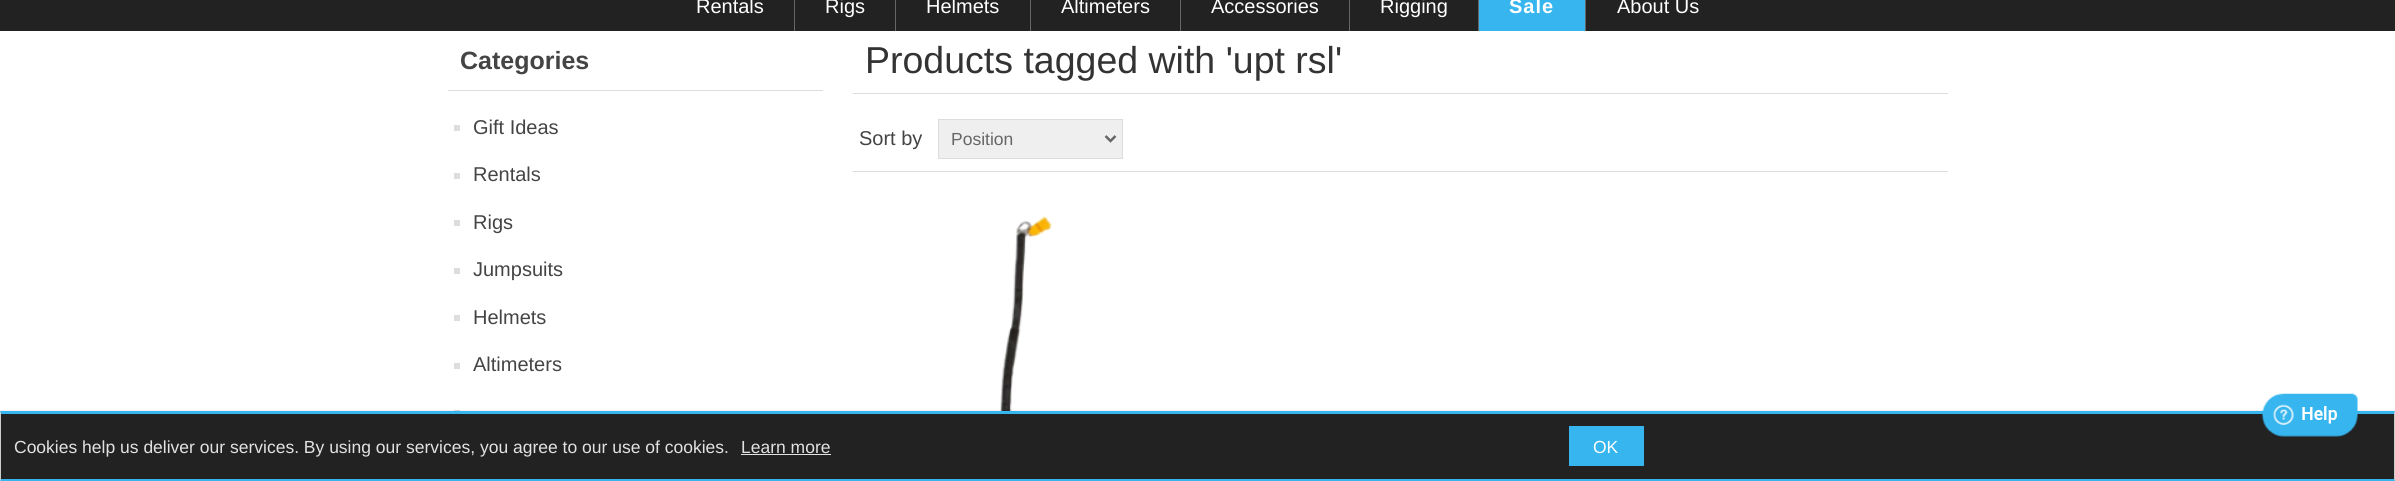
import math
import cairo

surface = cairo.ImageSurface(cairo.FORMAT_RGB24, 2395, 481)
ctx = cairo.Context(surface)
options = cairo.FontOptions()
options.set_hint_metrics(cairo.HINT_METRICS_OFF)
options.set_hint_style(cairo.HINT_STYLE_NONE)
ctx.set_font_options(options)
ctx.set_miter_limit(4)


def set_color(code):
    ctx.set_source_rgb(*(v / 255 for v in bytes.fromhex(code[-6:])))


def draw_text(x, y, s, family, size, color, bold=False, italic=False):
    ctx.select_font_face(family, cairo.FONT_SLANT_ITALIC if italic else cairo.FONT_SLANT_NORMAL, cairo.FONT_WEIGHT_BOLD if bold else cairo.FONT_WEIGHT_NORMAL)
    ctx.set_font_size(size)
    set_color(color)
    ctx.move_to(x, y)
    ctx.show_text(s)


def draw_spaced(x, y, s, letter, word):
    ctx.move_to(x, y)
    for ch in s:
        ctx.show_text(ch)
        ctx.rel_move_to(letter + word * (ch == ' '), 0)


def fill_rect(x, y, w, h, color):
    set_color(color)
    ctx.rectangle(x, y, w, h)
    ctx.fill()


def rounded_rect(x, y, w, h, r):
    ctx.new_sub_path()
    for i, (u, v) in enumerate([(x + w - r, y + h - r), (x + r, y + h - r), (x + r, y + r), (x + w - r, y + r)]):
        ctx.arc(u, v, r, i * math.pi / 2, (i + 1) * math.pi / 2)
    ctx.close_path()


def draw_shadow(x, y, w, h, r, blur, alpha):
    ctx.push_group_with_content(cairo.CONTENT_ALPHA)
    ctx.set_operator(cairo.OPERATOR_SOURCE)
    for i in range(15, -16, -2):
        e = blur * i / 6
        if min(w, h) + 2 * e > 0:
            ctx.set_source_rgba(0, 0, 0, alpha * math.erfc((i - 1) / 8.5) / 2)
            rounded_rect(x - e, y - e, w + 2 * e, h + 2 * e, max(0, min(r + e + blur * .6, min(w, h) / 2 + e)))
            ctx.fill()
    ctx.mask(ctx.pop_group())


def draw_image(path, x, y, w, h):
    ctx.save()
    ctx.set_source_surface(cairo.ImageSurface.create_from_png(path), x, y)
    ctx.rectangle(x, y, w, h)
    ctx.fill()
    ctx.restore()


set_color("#ffffff")
ctx.paint()
fill_rect(0, 0, 2395, 31, "#222222")
draw_text(696, 13, "Rentals", "Liberation Sans", 20, "#ffffff")
fill_rect(794, 0, 1, 31, "#666666")
draw_text(825, 13, "Rigs", "Liberation Sans", 20, "#ffffff")
fill_rect(895, 0, 1, 31, "#666666")
draw_text(926, 13, "Helmets", "Liberation Sans", 20, "#ffffff")
fill_rect(1030, 0, 1, 31, "#666666")
draw_text(1061, 13, "Altimeters", "Liberation Sans", 20, "#ffffff")
fill_rect(1180, 0, 1, 31, "#666666")
draw_text(1211, 13, "Accessories", "Liberation Sans", 20, "#ffffff")
fill_rect(1349, 0, 1, 31, "#666666")
draw_text(1380, 13, "Rigging", "Liberation Sans", 20, "#ffffff")
fill_rect(1479, 0, 106, 31, "#36b5ee")
fill_rect(1478, 0, 1, 31, "#666666")
ctx.select_font_face("Liberation Sans", cairo.FONT_SLANT_NORMAL, cairo.FONT_WEIGHT_BOLD)
set_color("#ffffff")
draw_spaced(1509, 13, "Sale", 1, 0)
fill_rect(1585, 0, 1, 31, "#666666")
draw_text(1617, 13, "About Us", "Liberation Sans", 20, "#ffffff")
fill_rect(448, 90, 375, 1, "#dddddd")
draw_text(460, 69, "Categories", "Liberation Sans", 25, "#444444", bold=True)
fill_rect(454, 125, 6, 6, "#dddddd")
draw_text(473, 134, "Gift Ideas", "Liberation Sans", 20, "#444444")
fill_rect(454, 173, 6, 6, "#dddddd")
draw_text(473, 181, "Rentals", "Liberation Sans", 20, "#444444")
fill_rect(454, 220, 6, 6, "#dddddd")
draw_text(473, 229, "Rigs", "Liberation Sans", 20, "#444444")
fill_rect(454, 268, 6, 6, "#dddddd")
draw_text(473, 276, "Jumpsuits", "Liberation Sans", 20, "#444444")
fill_rect(454, 315, 6, 6, "#dddddd")
draw_text(473, 324, "Helmets", "Liberation Sans", 20, "#444444")
fill_rect(454, 363, 6, 6, "#dddddd")
draw_text(473, 371, "Altimeters", "Liberation Sans", 20, "#444444")
fill_rect(454, 410, 6, 1, "#dddddd")
fill_rect(853, 93, 1095, 1, "#dddddd")
draw_text(865, 73, "Products tagged with 'upt rsl'", "Liberation Sans", 37.5, "#333333")
fill_rect(853, 171, 1095, 1, "#dddddd")
draw_text(859, 145, "Sort by", "Liberation Sans", 20, "#444444")
set_color("#efefef")
ctx.rectangle(938.5, 119.5, 184, 39)
ctx.fill_preserve()
set_color("#dddddd")
ctx.set_line_width(1)
ctx.stroke()
ctx.new_path()
ctx.move_to(1105.5, 136)
ctx.line_to(1110.5, 141)
ctx.line_to(1115.5, 136)
set_color("#666666")
ctx.set_line_width(2.5)
ctx.stroke()
draw_text(951, 145, "Position", "Liberation Sans", 17.5, "#666666")
draw_image("assets/img1.png", 1000, 216, 53, 195)
set_color("#000000")
draw_shadow(0, 411, 2395, 70, 0, 1, 0.15)
fill_rect(1, 414, 2393, 65, "#222222")
set_color("#36b5ee")
ctx.new_path()
ctx.move_to(0, 411)
ctx.line_to(2395, 411)
ctx.line_to(2394, 414)
ctx.line_to(1, 414)
ctx.close_path()
ctx.fill()
draw_image("assets/img2.png", 2262, 393, 96, 44)
set_color("#cccccc")
ctx.new_path()
ctx.move_to(2395, 411)
ctx.line_to(2395, 481)
ctx.line_to(2394, 479)
ctx.line_to(2394, 414)
ctx.close_path()
ctx.fill()
set_color("#36b5ee")
ctx.new_path()
ctx.move_to(2395, 481)
ctx.line_to(0, 481)
ctx.line_to(1, 479)
ctx.line_to(2394, 479)
ctx.close_path()
ctx.fill()
set_color("#cccccc")
ctx.new_path()
ctx.move_to(0, 481)
ctx.line_to(0, 411)
ctx.line_to(1, 414)
ctx.line_to(1, 479)
ctx.close_path()
ctx.fill()
draw_text(14, 453, "Cookies help us deliver our services. By using our services, you agree to our use of cookies.", "Liberation Sans", 17.5, "#e2e2e2")
draw_text(741, 453, "Learn more", "Liberation Sans", 17.5, "#e2e2e2")
fill_rect(741, 454, 90, 1, "#e2e2e2")
fill_rect(1569, 426, 75, 40, "#36b5ee")
draw_text(1593, 453, "OK", "Liberation Sans", 17.5, "#ffffff")
surface.write_to_png("output.png")
